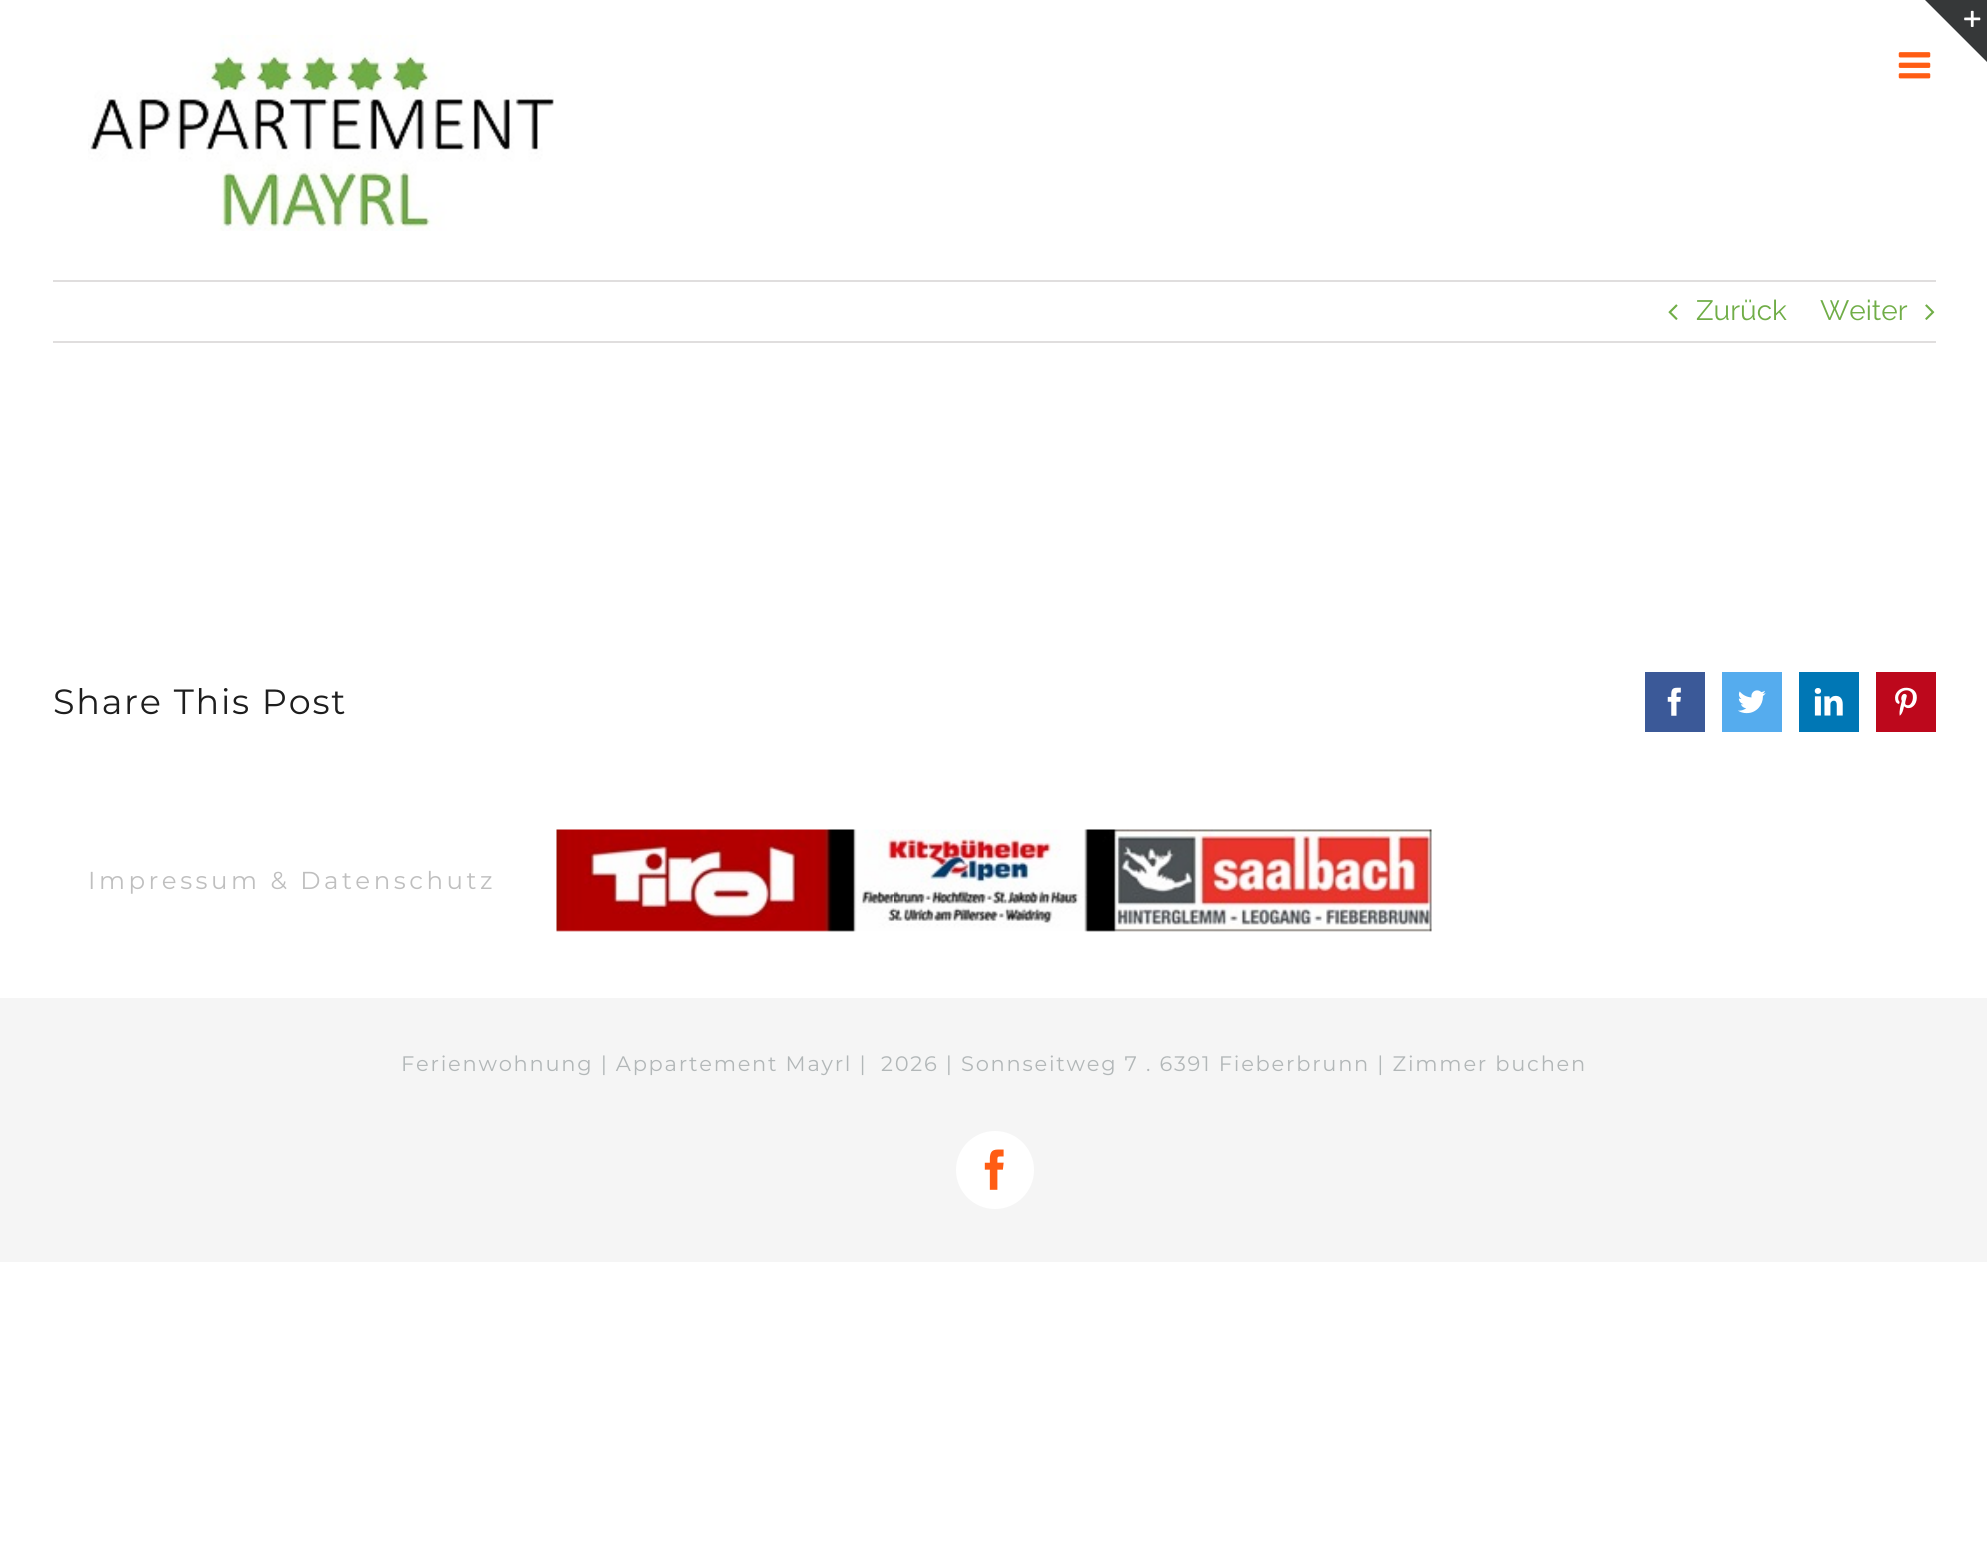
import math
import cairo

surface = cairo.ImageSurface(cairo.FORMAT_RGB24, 1987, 1561)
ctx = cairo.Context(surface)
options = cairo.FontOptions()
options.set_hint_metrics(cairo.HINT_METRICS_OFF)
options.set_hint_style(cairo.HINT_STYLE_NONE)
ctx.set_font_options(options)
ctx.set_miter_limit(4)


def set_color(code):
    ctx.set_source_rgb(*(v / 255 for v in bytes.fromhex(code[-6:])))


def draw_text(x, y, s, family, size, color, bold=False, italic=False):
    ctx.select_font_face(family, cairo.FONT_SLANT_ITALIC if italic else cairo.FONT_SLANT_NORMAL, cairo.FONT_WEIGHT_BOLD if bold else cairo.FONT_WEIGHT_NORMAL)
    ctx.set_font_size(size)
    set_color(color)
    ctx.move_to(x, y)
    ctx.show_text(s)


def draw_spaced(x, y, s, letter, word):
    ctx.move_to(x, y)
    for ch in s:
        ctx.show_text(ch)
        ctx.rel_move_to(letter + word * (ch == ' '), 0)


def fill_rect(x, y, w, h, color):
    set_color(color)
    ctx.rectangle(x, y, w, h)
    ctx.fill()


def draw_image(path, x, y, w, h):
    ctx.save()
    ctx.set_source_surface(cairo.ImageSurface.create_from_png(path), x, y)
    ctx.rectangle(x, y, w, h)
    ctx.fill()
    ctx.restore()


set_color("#ffffff")
ctx.paint()
draw_image("assets/img1.png", 88, 35, 466, 196)
draw_image("assets/img2.png", 1898, 52, 33, 27)
set_color("#363839")
ctx.new_path()
ctx.move_to(1925, 0)
ctx.line_to(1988, 0)
ctx.line_to(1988, 63)
ctx.close_path()
ctx.fill()
draw_image("assets/img3.png", 1964, 10, 17, 17)
fill_rect(53, 280, 1883, 2, "#e0dede")
fill_rect(53, 341, 1883, 2, "#e0dede")
draw_image("assets/img4.png", 1668, 304, 10, 16)
draw_text(1696, 320, "Zurück", "Raleway", 28, "#70ad47")
draw_text(1820, 320, "Weiter", "Raleway", 28, "#70ad47")
draw_image("assets/img5.png", 1925, 304, 10, 16)
ctx.select_font_face("Montserrat")
ctx.set_font_size(35)
set_color("#1e1e1e")
draw_spaced(53, 714, "Share This Post", 1.75, 0)
fill_rect(1645, 672, 60, 60, "#3b5998")
draw_image("assets/img6.png", 1667, 687, 14, 29)
fill_rect(1722, 672, 60, 60, "#55acee")
draw_image("assets/img7.png", 1738, 690, 28, 24)
fill_rect(1799, 672, 60, 60, "#0077b5")
draw_image("assets/img8.png", 1814, 688, 29, 28)
fill_rect(1876, 672, 60, 60, "#bd081c")
draw_image("assets/img9.png", 1895, 687, 22, 29)
draw_image("assets/img10.png", 556, 829, 876, 103)
ctx.set_font_size(24.5)
set_color("#bfbfbf")
draw_spaced(88, 889, "Impressum & Datenschutz", 3.5, 0)
fill_rect(0, 998, 1987, 264, "#f5f5f5")
ctx.set_font_size(21)
set_color("#b2b7b8")
draw_spaced(401, 1071, "Ferienwohnung | Appartement Mayrl |", 1.75, 0)
draw_spaced(881, 1071, "2026 | Sonnseitweg 7 . 6391 Fieberbrunn | Zimmer buchen", 1.75, 0)
set_color("#ffffff")
ctx.new_path()
ctx.arc(995, 1170, 38, 0, 2 * math.pi)
ctx.fill_preserve()
ctx.stroke()
draw_image("assets/img11.png", 984, 1149, 20, 41)
surface.write_to_png("output.png")
